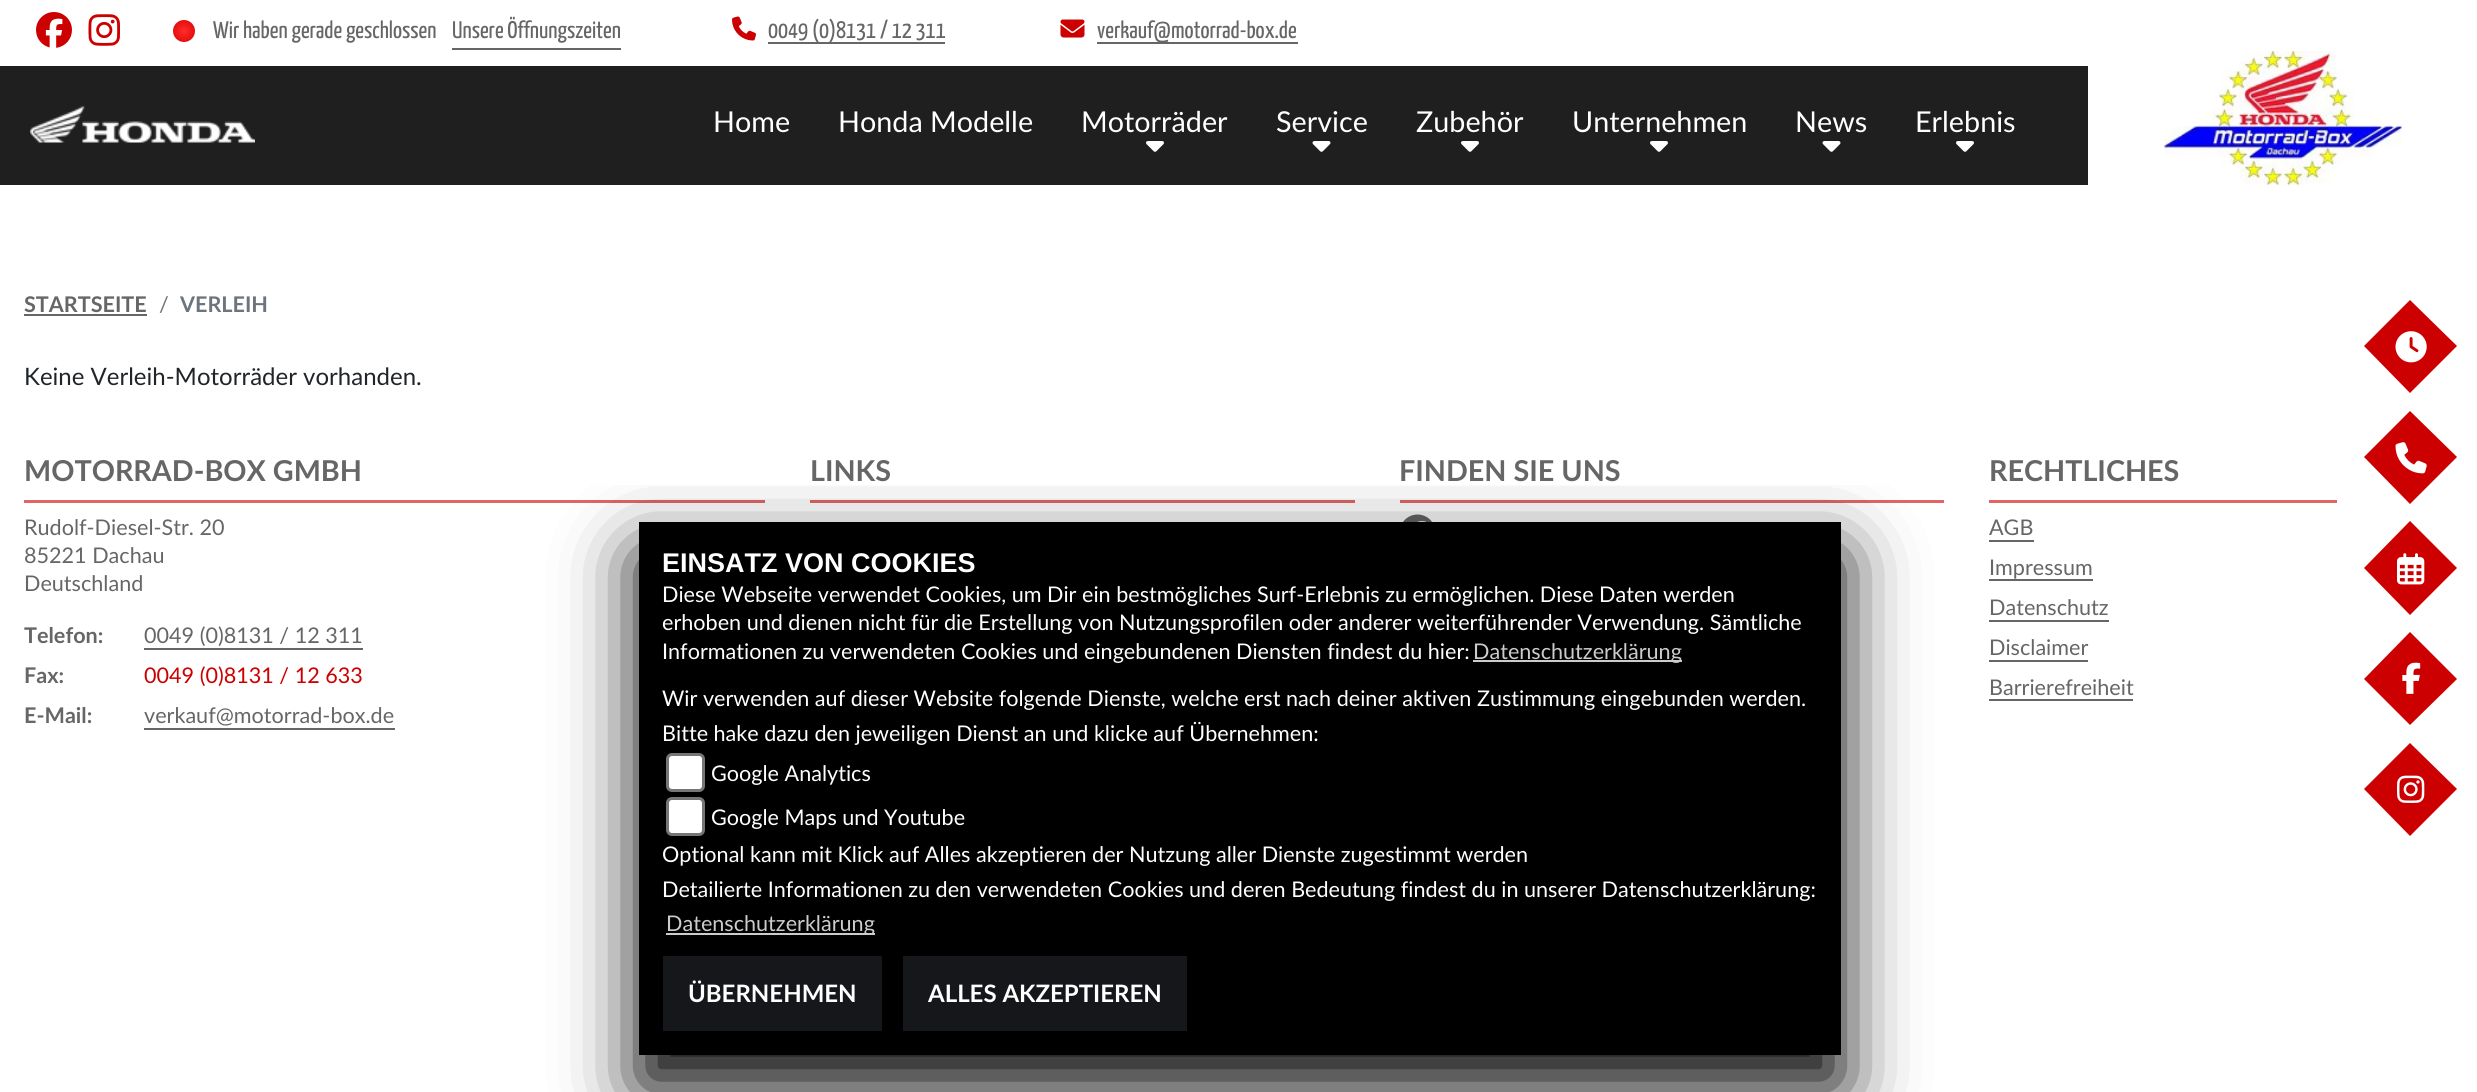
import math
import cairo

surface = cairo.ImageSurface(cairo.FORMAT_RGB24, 2477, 1092)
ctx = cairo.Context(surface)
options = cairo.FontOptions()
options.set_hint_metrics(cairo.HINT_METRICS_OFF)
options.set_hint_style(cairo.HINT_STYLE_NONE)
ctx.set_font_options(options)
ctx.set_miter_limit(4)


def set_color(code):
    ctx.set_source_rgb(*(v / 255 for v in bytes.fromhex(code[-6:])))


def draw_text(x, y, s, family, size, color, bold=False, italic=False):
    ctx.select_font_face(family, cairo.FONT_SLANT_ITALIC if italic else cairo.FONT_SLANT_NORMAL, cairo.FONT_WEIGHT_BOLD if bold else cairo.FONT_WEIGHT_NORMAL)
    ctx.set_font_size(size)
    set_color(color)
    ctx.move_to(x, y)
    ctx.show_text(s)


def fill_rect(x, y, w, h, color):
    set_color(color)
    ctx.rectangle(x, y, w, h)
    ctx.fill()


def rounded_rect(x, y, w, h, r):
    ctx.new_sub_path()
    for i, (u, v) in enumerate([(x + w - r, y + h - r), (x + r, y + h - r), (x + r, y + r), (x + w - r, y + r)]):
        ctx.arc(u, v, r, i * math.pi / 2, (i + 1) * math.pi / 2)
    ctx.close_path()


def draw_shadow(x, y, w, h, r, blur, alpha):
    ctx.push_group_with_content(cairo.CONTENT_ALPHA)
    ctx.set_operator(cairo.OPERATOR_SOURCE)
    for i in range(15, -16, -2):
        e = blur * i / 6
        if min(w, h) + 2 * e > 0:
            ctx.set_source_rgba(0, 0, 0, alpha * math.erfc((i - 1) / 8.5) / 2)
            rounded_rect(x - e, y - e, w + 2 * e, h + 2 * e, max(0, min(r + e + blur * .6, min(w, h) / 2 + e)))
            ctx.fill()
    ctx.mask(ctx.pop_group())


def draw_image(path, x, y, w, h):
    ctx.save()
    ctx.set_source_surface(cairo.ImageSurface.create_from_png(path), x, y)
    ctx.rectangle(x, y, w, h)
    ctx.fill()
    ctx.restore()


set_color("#ffffff")
ctx.paint()
draw_image("assets/img1.png", 36, 12, 36, 36)
draw_image("assets/img2.png", 88, 14, 32, 32)
gradient = cairo.RadialGradient(184, 31, 0, 184, 31, 16)
gradient.add_color_stop_rgba(0, 1, 0.176, 0.176, 1)
gradient.add_color_stop_rgba(1, 0.851, 0, 0, 1)
ctx.set_source(gradient)
ctx.arc(184, 31, 11, 0, 2 * math.pi)
ctx.fill()
draw_text(213, 38, "Wir haben gerade geschlossen", "Yanone Kaffeesatz", 24, "#666666")
fill_rect(452, 48, 169, 2, "#666666")
draw_text(452, 38, "Unsere Öffnungszeiten", "Yanone Kaffeesatz", 24, "#666666")
draw_image("assets/img3.png", 732, 16, 24, 25)
fill_rect(768, 42, 177, 2, "#666666")
draw_text(768, 38, "0049 (0)8131 / 12 311", "Yanone Kaffeesatz", 24, "#666666")
draw_image("assets/img4.png", 1060, 19, 25, 19)
fill_rect(1097, 42, 201, 2, "#666666")
draw_text(1097, 38, "verkauf@motorrad-box.de", "Yanone Kaffeesatz", 24, "#666666")
fill_rect(0, 66, 2088, 119, "#1f1f1f")
draw_image("assets/img5.png", 30, 106, 225, 37)
draw_text(713, 132, "Home", "Lato", 28.75, "#ffffff")
draw_text(838, 132, "Honda Modelle", "Lato", 28.75, "#ffffff")
draw_text(1081, 132, "Motorräder", "Lato", 28.75, "#ffffff")
draw_image("assets/img6.png", 1146, 141, 18, 11)
draw_text(1276, 132, "Service", "Lato", 28.75, "#ffffff")
draw_image("assets/img7.png", 1312, 141, 19, 11)
draw_text(1416, 132, "Zubehör", "Lato", 28.75, "#ffffff")
draw_image("assets/img6.png", 1461, 141, 18, 11)
draw_text(1572, 132, "Unternehmen", "Lato", 28.75, "#ffffff")
draw_image("assets/img6.png", 1650, 141, 18, 11)
draw_text(1795, 132, "News", "Lato", 28.75, "#ffffff")
draw_image("assets/img7.png", 1822, 141, 19, 11)
draw_text(1915, 132, "Erlebnis", "Lato", 28.75, "#ffffff")
draw_image("assets/img6.png", 1956, 141, 18, 11)
draw_image("assets/img8.png", 2164, 51, 238, 134)
draw_text(24, 312, "STARTSEITE", "Lato", 21.6, "#666666", bold=True)
fill_rect(24, 314, 123, 2, "#666666")
draw_text(159, 312, "/", "Lato", 21.6, "#6c757d")
draw_text(180, 312, "VERLEIH", "Lato", 21.6, "#6c757d", bold=True)
set_color("#cc0000")
ctx.new_path()
ctx.move_to(2410, 300)
ctx.line_to(2457, 346)
ctx.line_to(2410, 393)
ctx.line_to(2364, 346)
ctx.close_path()
ctx.fill()
draw_image("assets/img9.png", 2395, 331, 32, 32)
ctx.new_path()
ctx.move_to(2410, 411)
ctx.line_to(2457, 457)
ctx.line_to(2410, 504)
ctx.line_to(2364, 457)
ctx.close_path()
ctx.fill()
draw_image("assets/img10.png", 2395, 442, 32, 32)
ctx.new_path()
ctx.move_to(2410, 521)
ctx.line_to(2457, 568)
ctx.line_to(2410, 615)
ctx.line_to(2364, 568)
ctx.close_path()
ctx.fill()
draw_image("assets/img11.png", 2397, 553, 28, 32)
ctx.new_path()
ctx.move_to(2410, 632)
ctx.line_to(2457, 679)
ctx.line_to(2410, 725)
ctx.line_to(2364, 679)
ctx.close_path()
ctx.fill()
draw_image("assets/img12.png", 2402, 662, 19, 32)
ctx.new_path()
ctx.move_to(2410, 743)
ctx.line_to(2457, 789)
ctx.line_to(2410, 836)
ctx.line_to(2364, 789)
ctx.close_path()
ctx.fill()
draw_image("assets/img13.png", 2397, 775, 28, 28)
draw_text(24, 385, "Keine Verleih-Motorräder vorhanden.", "Lato", 24, "#212529")
draw_text(24, 481, "MOTORRAD-BOX GMBH", "Lato", 28.75, "#666666", bold=True)
fill_rect(24, 500, 741, 3, "#e06666")
draw_text(24, 535, "Rudolf-Diesel-Str. 20", "Lato", 21.6, "#666666")
draw_text(24, 563, "85221 Dachau", "Lato", 21.6, "#666666")
draw_text(24, 591, "Deutschland", "Lato", 21.6, "#666666")
draw_text(24, 643, "Telefon:", "Lato", 21.6, "#666666", bold=True)
draw_text(144, 643, "0049 (0)8131 / 12 311", "Lato", 21.6, "#666666")
fill_rect(144, 648, 219, 2, "#666666")
draw_text(24, 683, "Fax:", "Lato", 21.6, "#666666", bold=True)
draw_text(144, 683, "0049 (0)8131 / 12 633", "Lato", 21.6, "#cc0000")
draw_text(24, 723, "E-Mail:", "Lato", 21.6, "#666666", bold=True)
draw_text(144, 723, "verkauf@motorrad-box.de", "Lato", 21.6, "#666666")
fill_rect(144, 728, 251, 2, "#666666")
draw_text(810, 481, "LINKS", "Lato", 28.75, "#666666", bold=True)
fill_rect(810, 500, 545, 3, "#e06666")
draw_text(1399, 481, "FINDEN SIE UNS", "Lato", 28.75, "#666666", bold=True)
fill_rect(1400, 500, 544, 3, "#e06666")
draw_image("assets/img14.png", 1403, 514, 29, 8)
draw_text(1989, 481, "RECHTLICHES", "Lato", 28.75, "#666666", bold=True)
fill_rect(1989, 500, 348, 3, "#e06666")
draw_text(1989, 535, "AGB", "Lato", 21.6, "#666666")
fill_rect(1989, 540, 45, 2, "#666666")
draw_text(1989, 575, "Impressum", "Lato", 21.6, "#666666")
fill_rect(1989, 579, 104, 2, "#666666")
draw_text(1989, 615, "Datenschutz", "Lato", 21.6, "#666666")
fill_rect(1989, 620, 120, 2, "#666666")
draw_text(1989, 655, "Disclaimer", "Lato", 21.6, "#666666")
fill_rect(1989, 660, 99, 2, "#666666")
draw_text(1989, 695, "Barrierefreiheit", "Lato", 21.6, "#666666")
fill_rect(1989, 699, 144, 2, "#666666")
ctx.save()
ctx.rectangle(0, 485, 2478, 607)
ctx.clip()
set_color("#000000")
draw_shadow(639, 555, 1202, 533, 0, 37.5, 1)
ctx.restore()
fill_rect(639, 522, 1202, 533, "#000000")
draw_text(662, 572, "EINSATZ VON COOKIES", "Liberation Sans", 27, "#ffffff", bold=True)
draw_text(662, 602, "Diese Webseite verwendet Cookies, um Dir ein bestmögliches Surf-Erlebnis zu ermöglichen. Diese Daten werden", "Lato", 21.6, "#ffffff")
draw_text(662, 630, "erhoben und dienen nicht für die Erstellung von Nutzungsprofilen oder anderer weiterführender Verwendung. Sämtliche", "Lato", 21.6, "#ffffff")
draw_text(662, 659, "Informationen zu verwendeten Cookies und eingebundenen Diensten findest du hier:", "Lato", 21.6, "#ffffff")
fill_rect(1473, 660, 209, 2, "#cccccc")
draw_text(1473, 659, "Datenschutzerklärung", "Lato", 21.6, "#cccccc")
draw_text(662, 706, "Wir verwenden auf dieser Website folgende Dienste, welche erst nach deiner aktiven Zustimmung eingebunden werden.", "Lato", 21.6, "#ffffff")
draw_text(662, 741, "Bitte hake dazu den jeweiligen Dienst an und klicke auf Übernehmen:", "Lato", 21.6, "#ffffff")
rounded_rect(667.5, 754.5, 36, 36, 4.5)
ctx.fill_preserve()
set_color("#767676")
ctx.set_line_width(3)
ctx.stroke()
draw_text(711, 781, "Google Analytics", "Lato", 21.6, "#ffffff")
rounded_rect(667.5, 798.5, 36, 36, 4.5)
ctx.fill_preserve()
set_color("#767676")
ctx.stroke()
draw_text(711, 825, "Google Maps und Youtube", "Lato", 21.6, "#ffffff")
draw_text(662, 862, "Optional kann mit Klick auf Alles akzeptieren der Nutzung aller Dienste zugestimmt werden", "Lato", 21.6, "#ffffff")
draw_text(662, 897, "Detailierte Informationen zu den verwendeten Cookies und deren Bedeutung findest du in unserer Datenschutzerklärung:", "Lato", 21.6, "#ffffff")
fill_rect(666, 933, 209, 2, "#cccccc")
draw_text(666, 931, "Datenschutzerklärung", "Lato", 21.6, "#cccccc")
fill_rect(663, 956, 219, 75, "#16171a")
draw_text(688, 1002, "ÜBERNEHMEN", "Lato", 24, "#ffffff", bold=True)
fill_rect(903, 956, 284, 75, "#16171a")
draw_text(928, 1002, "ALLES AKZEPTIEREN", "Lato", 24, "#ffffff", bold=True)
surface.write_to_png("output.png")
